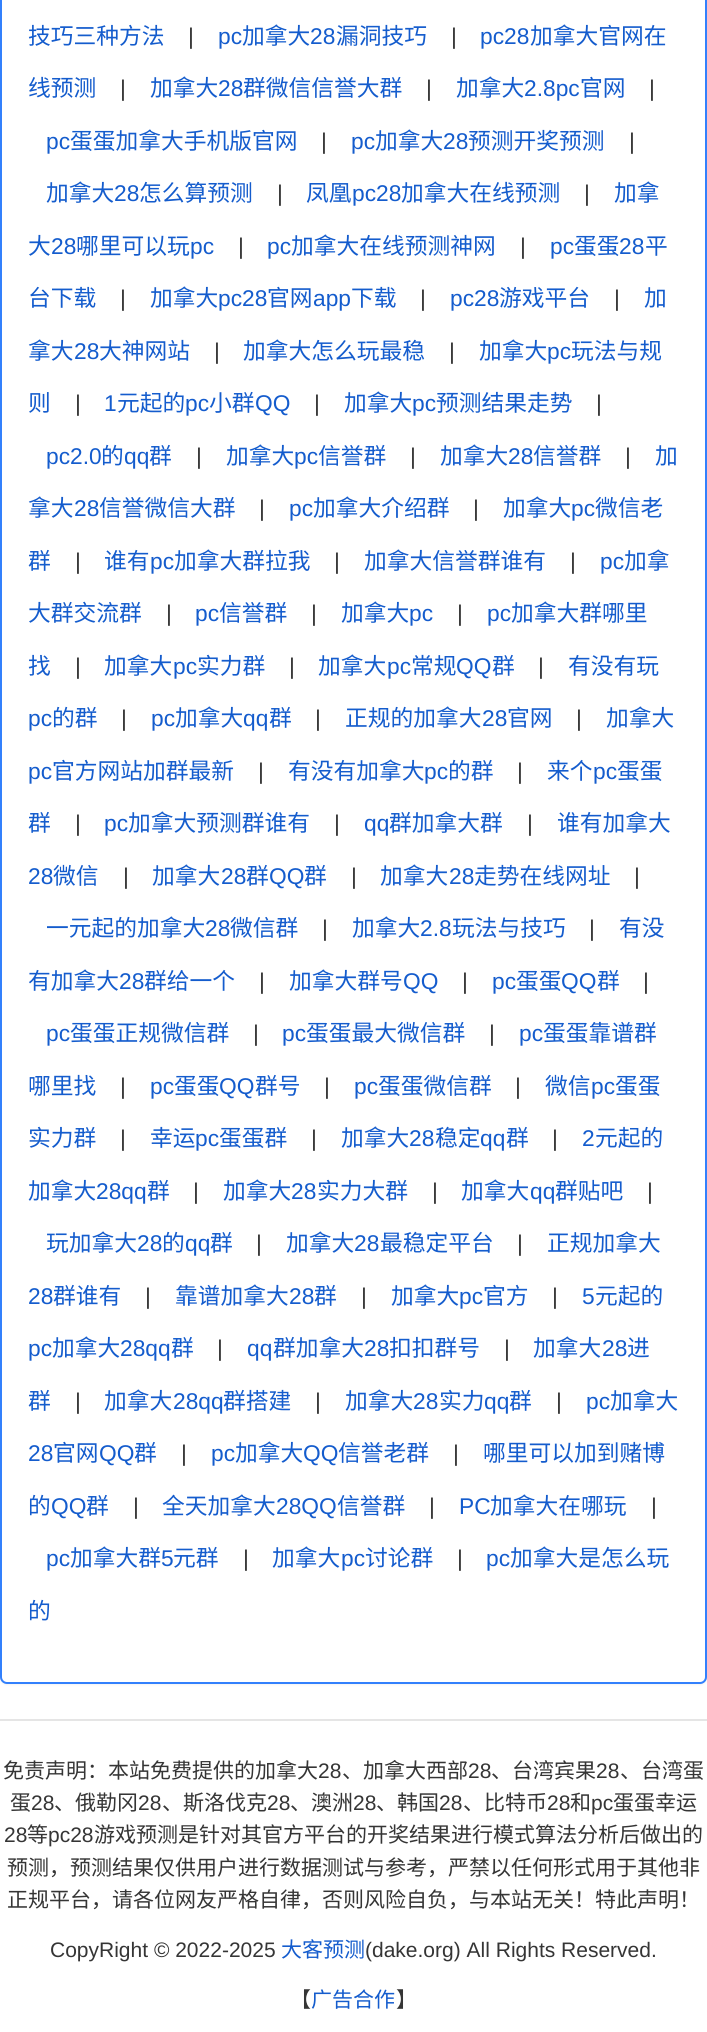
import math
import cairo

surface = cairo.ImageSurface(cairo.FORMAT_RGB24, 707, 2032)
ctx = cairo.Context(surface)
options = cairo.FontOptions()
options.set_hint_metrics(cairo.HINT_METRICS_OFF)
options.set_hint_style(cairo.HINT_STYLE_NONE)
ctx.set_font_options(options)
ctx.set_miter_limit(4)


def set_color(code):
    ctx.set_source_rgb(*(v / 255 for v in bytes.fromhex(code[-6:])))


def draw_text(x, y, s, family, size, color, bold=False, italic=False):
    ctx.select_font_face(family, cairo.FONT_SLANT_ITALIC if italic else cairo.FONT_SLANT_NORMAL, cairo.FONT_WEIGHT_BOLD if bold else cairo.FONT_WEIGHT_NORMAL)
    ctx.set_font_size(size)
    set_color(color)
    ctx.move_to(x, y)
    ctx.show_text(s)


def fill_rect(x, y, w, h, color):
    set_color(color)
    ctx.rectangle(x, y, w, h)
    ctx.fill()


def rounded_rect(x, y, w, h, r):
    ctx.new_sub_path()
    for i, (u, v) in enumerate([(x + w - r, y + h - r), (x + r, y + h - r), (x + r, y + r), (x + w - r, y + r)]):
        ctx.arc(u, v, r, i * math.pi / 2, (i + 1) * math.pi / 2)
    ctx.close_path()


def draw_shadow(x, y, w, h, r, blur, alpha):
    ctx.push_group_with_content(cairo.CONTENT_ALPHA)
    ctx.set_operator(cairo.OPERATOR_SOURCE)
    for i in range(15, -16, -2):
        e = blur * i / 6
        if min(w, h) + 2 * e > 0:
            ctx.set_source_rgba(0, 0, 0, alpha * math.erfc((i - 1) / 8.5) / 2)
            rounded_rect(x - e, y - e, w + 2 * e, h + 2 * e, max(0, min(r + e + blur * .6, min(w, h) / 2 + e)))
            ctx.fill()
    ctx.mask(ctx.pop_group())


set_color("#ffffff")
ctx.paint()
set_color("#000000")
draw_shadow(0, -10, 707, 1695, 7, 1, 0.05)
set_color("#ffffff")
rounded_rect(1, -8, 705, 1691, 6)
ctx.fill_preserve()
set_color("#3280fc")
ctx.stroke()
draw_text(28, 44, "技巧三种方法", "Noto Sans CJK SC", 22.75, "#145ccd")
draw_text(188, 44, "|", "Liberation Sans", 22.75, "#353535")
draw_text(218, 44, "pc", "Liberation Sans", 22.75, "#145ccd")
draw_text(242, 44, "加拿大", "Noto Sans CJK SC", 22.75, "#145ccd")
draw_text(310, 44, "28", "Liberation Sans", 22.75, "#145ccd")
draw_text(336, 44, "漏洞技巧", "Noto Sans CJK SC", 22.75, "#145ccd")
draw_text(451, 44, "|", "Liberation Sans", 22.75, "#353535")
draw_text(480, 44, "pc28", "Liberation Sans", 22.75, "#145ccd")
draw_text(530, 44, "加拿大官网在", "Noto Sans CJK SC", 22.75, "#145ccd")
draw_text(28, 96, "线预测", "Noto Sans CJK SC", 22.75, "#145ccd")
draw_text(120, 96, "|", "Liberation Sans", 22.75, "#353535")
draw_text(150, 96, "加拿大", "Noto Sans CJK SC", 22.75, "#145ccd")
draw_text(218, 96, "28", "Liberation Sans", 22.75, "#145ccd")
draw_text(243, 96, "群微信信誉大群", "Noto Sans CJK SC", 22.75, "#145ccd")
draw_text(426, 96, "|", "Liberation Sans", 22.75, "#353535")
draw_text(456, 96, "加拿大", "Noto Sans CJK SC", 22.75, "#145ccd")
draw_text(524, 96, "2.8pc", "Liberation Sans", 22.75, "#145ccd")
draw_text(580, 96, "官网", "Noto Sans CJK SC", 22.75, "#145ccd")
draw_text(649, 96, "|", "Liberation Sans", 22.75, "#353535")
draw_text(46, 149, "pc", "Liberation Sans", 22.75, "#145ccd")
draw_text(70, 149, "蛋蛋加拿大手机版官网", "Noto Sans CJK SC", 22.75, "#145ccd")
draw_text(321, 149, "|", "Liberation Sans", 22.75, "#353535")
draw_text(351, 149, "pc", "Liberation Sans", 22.75, "#145ccd")
draw_text(375, 149, "加拿大", "Noto Sans CJK SC", 22.75, "#145ccd")
draw_text(443, 149, "28", "Liberation Sans", 22.75, "#145ccd")
draw_text(468, 149, "预测开奖预测", "Noto Sans CJK SC", 22.75, "#145ccd")
draw_text(629, 149, "|", "Liberation Sans", 22.75, "#353535")
draw_text(46, 201, "加拿大", "Noto Sans CJK SC", 22.75, "#145ccd")
draw_text(114, 201, "28", "Liberation Sans", 22.75, "#145ccd")
draw_text(139, 201, "怎么算预测", "Noto Sans CJK SC", 22.75, "#145ccd")
draw_text(277, 201, "|", "Liberation Sans", 22.75, "#353535")
draw_text(306, 201, "凤凰", "Noto Sans CJK SC", 22.75, "#145ccd")
draw_text(352, 201, "pc28", "Liberation Sans", 22.75, "#145ccd")
draw_text(401, 201, "加拿大在线预测", "Noto Sans CJK SC", 22.75, "#145ccd")
draw_text(584, 201, "|", "Liberation Sans", 22.75, "#353535")
draw_text(614, 201, "加拿", "Noto Sans CJK SC", 22.75, "#145ccd")
draw_text(28, 254, "大", "Noto Sans CJK SC", 22.75, "#145ccd")
draw_text(51, 254, "28", "Liberation Sans", 22.75, "#145ccd")
draw_text(76, 254, "哪里可以玩", "Noto Sans CJK SC", 22.75, "#145ccd")
draw_text(190, 254, "pc", "Liberation Sans", 22.75, "#145ccd")
draw_text(238, 254, "|", "Liberation Sans", 22.75, "#353535")
draw_text(267, 254, "pc", "Liberation Sans", 22.75, "#145ccd")
draw_text(291, 254, "加拿大在线预测神网", "Noto Sans CJK SC", 22.75, "#145ccd")
draw_text(520, 254, "|", "Liberation Sans", 22.75, "#353535")
draw_text(550, 254, "pc", "Liberation Sans", 22.75, "#145ccd")
draw_text(574, 254, "蛋蛋", "Noto Sans CJK SC", 22.75, "#145ccd")
draw_text(619, 254, "28", "Liberation Sans", 22.75, "#145ccd")
draw_text(645, 254, "平", "Noto Sans CJK SC", 22.75, "#145ccd")
draw_text(28, 306, "台下载", "Noto Sans CJK SC", 22.75, "#145ccd")
draw_text(120, 306, "|", "Liberation Sans", 22.75, "#353535")
draw_text(150, 306, "加拿大", "Noto Sans CJK SC", 22.75, "#145ccd")
draw_text(218, 306, "pc28", "Liberation Sans", 22.75, "#145ccd")
draw_text(267, 306, "官网", "Noto Sans CJK SC", 22.75, "#145ccd")
draw_text(313, 306, "app", "Liberation Sans", 22.75, "#145ccd")
draw_text(351, 306, "下载", "Noto Sans CJK SC", 22.75, "#145ccd")
draw_text(420, 306, "|", "Liberation Sans", 22.75, "#353535")
draw_text(450, 306, "pc28", "Liberation Sans", 22.75, "#145ccd")
draw_text(499, 306, "游戏平台", "Noto Sans CJK SC", 22.75, "#145ccd")
draw_text(614, 306, "|", "Liberation Sans", 22.75, "#353535")
draw_text(644, 306, "加", "Noto Sans CJK SC", 22.75, "#145ccd")
draw_text(28, 359, "拿大", "Noto Sans CJK SC", 22.75, "#145ccd")
draw_text(74, 359, "28", "Liberation Sans", 22.75, "#145ccd")
draw_text(99, 359, "大神网站", "Noto Sans CJK SC", 22.75, "#145ccd")
draw_text(214, 359, "|", "Liberation Sans", 22.75, "#353535")
draw_text(243, 359, "加拿大怎么玩最稳", "Noto Sans CJK SC", 22.75, "#145ccd")
draw_text(449, 359, "|", "Liberation Sans", 22.75, "#353535")
draw_text(479, 359, "加拿大", "Noto Sans CJK SC", 22.75, "#145ccd")
draw_text(547, 359, "pc", "Liberation Sans", 22.75, "#145ccd")
draw_text(571, 359, "玩法与规", "Noto Sans CJK SC", 22.75, "#145ccd")
draw_text(28, 411, "则", "Noto Sans CJK SC", 22.75, "#145ccd")
draw_text(75, 411, "|", "Liberation Sans", 22.75, "#353535")
draw_text(104, 411, "1", "Liberation Sans", 22.75, "#145ccd")
draw_text(117, 411, "元起的", "Noto Sans CJK SC", 22.75, "#145ccd")
draw_text(185, 411, "pc", "Liberation Sans", 22.75, "#145ccd")
draw_text(209, 411, "小群", "Noto Sans CJK SC", 22.75, "#145ccd")
draw_text(255, 411, "QQ", "Liberation Sans", 22.75, "#145ccd")
draw_text(314, 411, "|", "Liberation Sans", 22.75, "#353535")
draw_text(344, 411, "加拿大", "Noto Sans CJK SC", 22.75, "#145ccd")
draw_text(412, 411, "pc", "Liberation Sans", 22.75, "#145ccd")
draw_text(436, 411, "预测结果走势", "Noto Sans CJK SC", 22.75, "#145ccd")
draw_text(596, 411, "|", "Liberation Sans", 22.75, "#353535")
draw_text(46, 464, "pc2.0", "Liberation Sans", 22.75, "#145ccd")
draw_text(101, 464, "的", "Noto Sans CJK SC", 22.75, "#145ccd")
draw_text(124, 464, "qq", "Liberation Sans", 22.75, "#145ccd")
draw_text(149, 464, "群", "Noto Sans CJK SC", 22.75, "#145ccd")
draw_text(196, 464, "|", "Liberation Sans", 22.75, "#353535")
draw_text(226, 464, "加拿大", "Noto Sans CJK SC", 22.75, "#145ccd")
draw_text(294, 464, "pc", "Liberation Sans", 22.75, "#145ccd")
draw_text(318, 464, "信誉群", "Noto Sans CJK SC", 22.75, "#145ccd")
draw_text(410, 464, "|", "Liberation Sans", 22.75, "#353535")
draw_text(440, 464, "加拿大", "Noto Sans CJK SC", 22.75, "#145ccd")
draw_text(508, 464, "28", "Liberation Sans", 22.75, "#145ccd")
draw_text(533, 464, "信誉群", "Noto Sans CJK SC", 22.75, "#145ccd")
draw_text(625, 464, "|", "Liberation Sans", 22.75, "#353535")
draw_text(655, 464, "加", "Noto Sans CJK SC", 22.75, "#145ccd")
draw_text(28, 516, "拿大", "Noto Sans CJK SC", 22.75, "#145ccd")
draw_text(74, 516, "28", "Liberation Sans", 22.75, "#145ccd")
draw_text(99, 516, "信誉微信大群", "Noto Sans CJK SC", 22.75, "#145ccd")
draw_text(259, 516, "|", "Liberation Sans", 22.75, "#353535")
draw_text(289, 516, "pc", "Liberation Sans", 22.75, "#145ccd")
draw_text(313, 516, "加拿大介绍群", "Noto Sans CJK SC", 22.75, "#145ccd")
draw_text(473, 516, "|", "Liberation Sans", 22.75, "#353535")
draw_text(503, 516, "加拿大", "Noto Sans CJK SC", 22.75, "#145ccd")
draw_text(571, 516, "pc", "Liberation Sans", 22.75, "#145ccd")
draw_text(595, 516, "微信老", "Noto Sans CJK SC", 22.75, "#145ccd")
draw_text(28, 569, "群", "Noto Sans CJK SC", 22.75, "#145ccd")
draw_text(75, 569, "|", "Liberation Sans", 22.75, "#353535")
draw_text(104, 569, "谁有", "Noto Sans CJK SC", 22.75, "#145ccd")
draw_text(150, 569, "pc", "Liberation Sans", 22.75, "#145ccd")
draw_text(174, 569, "加拿大群拉我", "Noto Sans CJK SC", 22.75, "#145ccd")
draw_text(334, 569, "|", "Liberation Sans", 22.75, "#353535")
draw_text(364, 569, "加拿大信誉群谁有", "Noto Sans CJK SC", 22.75, "#145ccd")
draw_text(570, 569, "|", "Liberation Sans", 22.75, "#353535")
draw_text(600, 569, "pc", "Liberation Sans", 22.75, "#145ccd")
draw_text(624, 569, "加拿", "Noto Sans CJK SC", 22.75, "#145ccd")
draw_text(28, 621, "大群交流群", "Noto Sans CJK SC", 22.75, "#145ccd")
draw_text(166, 621, "|", "Liberation Sans", 22.75, "#353535")
draw_text(195, 621, "pc", "Liberation Sans", 22.75, "#145ccd")
draw_text(219, 621, "信誉群", "Noto Sans CJK SC", 22.75, "#145ccd")
draw_text(311, 621, "|", "Liberation Sans", 22.75, "#353535")
draw_text(341, 621, "加拿大", "Noto Sans CJK SC", 22.75, "#145ccd")
draw_text(409, 621, "pc", "Liberation Sans", 22.75, "#145ccd")
draw_text(457, 621, "|", "Liberation Sans", 22.75, "#353535")
draw_text(487, 621, "pc", "Liberation Sans", 22.75, "#145ccd")
draw_text(511, 621, "加拿大群哪里", "Noto Sans CJK SC", 22.75, "#145ccd")
draw_text(28, 674, "找", "Noto Sans CJK SC", 22.75, "#145ccd")
draw_text(75, 674, "|", "Liberation Sans", 22.75, "#353535")
draw_text(104, 674, "加拿大", "Noto Sans CJK SC", 22.75, "#145ccd")
draw_text(173, 674, "pc", "Liberation Sans", 22.75, "#145ccd")
draw_text(197, 674, "实力群", "Noto Sans CJK SC", 22.75, "#145ccd")
draw_text(289, 674, "|", "Liberation Sans", 22.75, "#353535")
draw_text(318, 674, "加拿大", "Noto Sans CJK SC", 22.75, "#145ccd")
draw_text(387, 674, "pc", "Liberation Sans", 22.75, "#145ccd")
draw_text(411, 674, "常规", "Noto Sans CJK SC", 22.75, "#145ccd")
draw_text(456, 674, "QQ", "Liberation Sans", 22.75, "#145ccd")
draw_text(492, 674, "群", "Noto Sans CJK SC", 22.75, "#145ccd")
draw_text(538, 674, "|", "Liberation Sans", 22.75, "#353535")
draw_text(568, 674, "有没有玩", "Noto Sans CJK SC", 22.75, "#145ccd")
draw_text(28, 726, "pc", "Liberation Sans", 22.75, "#145ccd")
draw_text(52, 726, "的群", "Noto Sans CJK SC", 22.75, "#145ccd")
draw_text(121, 726, "|", "Liberation Sans", 22.75, "#353535")
draw_text(151, 726, "pc", "Liberation Sans", 22.75, "#145ccd")
draw_text(175, 726, "加拿大", "Noto Sans CJK SC", 22.75, "#145ccd")
draw_text(243, 726, "qq", "Liberation Sans", 22.75, "#145ccd")
draw_text(269, 726, "群", "Noto Sans CJK SC", 22.75, "#145ccd")
draw_text(315, 726, "|", "Liberation Sans", 22.75, "#353535")
draw_text(345, 726, "正规的加拿大", "Noto Sans CJK SC", 22.75, "#145ccd")
draw_text(482, 726, "28", "Liberation Sans", 22.75, "#145ccd")
draw_text(507, 726, "官网", "Noto Sans CJK SC", 22.75, "#145ccd")
draw_text(576, 726, "|", "Liberation Sans", 22.75, "#353535")
draw_text(606, 726, "加拿大", "Noto Sans CJK SC", 22.75, "#145ccd")
draw_text(28, 779, "pc", "Liberation Sans", 22.75, "#145ccd")
draw_text(52, 779, "官方网站加群最新", "Noto Sans CJK SC", 22.75, "#145ccd")
draw_text(258, 779, "|", "Liberation Sans", 22.75, "#353535")
draw_text(288, 779, "有没有加拿大", "Noto Sans CJK SC", 22.75, "#145ccd")
draw_text(424, 779, "pc", "Liberation Sans", 22.75, "#145ccd")
draw_text(448, 779, "的群", "Noto Sans CJK SC", 22.75, "#145ccd")
draw_text(517, 779, "|", "Liberation Sans", 22.75, "#353535")
draw_text(547, 779, "来个", "Noto Sans CJK SC", 22.75, "#145ccd")
draw_text(593, 779, "pc", "Liberation Sans", 22.75, "#145ccd")
draw_text(617, 779, "蛋蛋", "Noto Sans CJK SC", 22.75, "#145ccd")
draw_text(28, 831, "群", "Noto Sans CJK SC", 22.75, "#145ccd")
draw_text(75, 831, "|", "Liberation Sans", 22.75, "#353535")
draw_text(104, 831, "pc", "Liberation Sans", 22.75, "#145ccd")
draw_text(128, 831, "加拿大预测群谁有", "Noto Sans CJK SC", 22.75, "#145ccd")
draw_text(334, 831, "|", "Liberation Sans", 22.75, "#353535")
draw_text(364, 831, "qq", "Liberation Sans", 22.75, "#145ccd")
draw_text(389, 831, "群加拿大群", "Noto Sans CJK SC", 22.75, "#145ccd")
draw_text(527, 831, "|", "Liberation Sans", 22.75, "#353535")
draw_text(557, 831, "谁有加拿大", "Noto Sans CJK SC", 22.75, "#145ccd")
draw_text(28, 884, "28", "Liberation Sans", 22.75, "#145ccd")
draw_text(53, 884, "微信", "Noto Sans CJK SC", 22.75, "#145ccd")
draw_text(123, 884, "|", "Liberation Sans", 22.75, "#353535")
draw_text(152, 884, "加拿大", "Noto Sans CJK SC", 22.75, "#145ccd")
draw_text(221, 884, "28", "Liberation Sans", 22.75, "#145ccd")
draw_text(246, 884, "群", "Noto Sans CJK SC", 22.75, "#145ccd")
draw_text(269, 884, "QQ", "Liberation Sans", 22.75, "#145ccd")
draw_text(304, 884, "群", "Noto Sans CJK SC", 22.75, "#145ccd")
draw_text(351, 884, "|", "Liberation Sans", 22.75, "#353535")
draw_text(380, 884, "加拿大", "Noto Sans CJK SC", 22.75, "#145ccd")
draw_text(449, 884, "28", "Liberation Sans", 22.75, "#145ccd")
draw_text(474, 884, "走势在线网址", "Noto Sans CJK SC", 22.75, "#145ccd")
draw_text(634, 884, "|", "Liberation Sans", 22.75, "#353535")
draw_text(46, 936, "一元起的加拿大", "Noto Sans CJK SC", 22.75, "#145ccd")
draw_text(205, 936, "28", "Liberation Sans", 22.75, "#145ccd")
draw_text(230, 936, "微信群", "Noto Sans CJK SC", 22.75, "#145ccd")
draw_text(322, 936, "|", "Liberation Sans", 22.75, "#353535")
draw_text(352, 936, "加拿大", "Noto Sans CJK SC", 22.75, "#145ccd")
draw_text(420, 936, "2.8", "Liberation Sans", 22.75, "#145ccd")
draw_text(452, 936, "玩法与技巧", "Noto Sans CJK SC", 22.75, "#145ccd")
draw_text(589, 936, "|", "Liberation Sans", 22.75, "#353535")
draw_text(619, 936, "有没", "Noto Sans CJK SC", 22.75, "#145ccd")
draw_text(28, 989, "有加拿大", "Noto Sans CJK SC", 22.75, "#145ccd")
draw_text(119, 989, "28", "Liberation Sans", 22.75, "#145ccd")
draw_text(144, 989, "群给一个", "Noto Sans CJK SC", 22.75, "#145ccd")
draw_text(259, 989, "|", "Liberation Sans", 22.75, "#353535")
draw_text(289, 989, "加拿大群号", "Noto Sans CJK SC", 22.75, "#145ccd")
draw_text(403, 989, "QQ", "Liberation Sans", 22.75, "#145ccd")
draw_text(462, 989, "|", "Liberation Sans", 22.75, "#353535")
draw_text(492, 989, "pc", "Liberation Sans", 22.75, "#145ccd")
draw_text(516, 989, "蛋蛋", "Noto Sans CJK SC", 22.75, "#145ccd")
draw_text(561, 989, "QQ", "Liberation Sans", 22.75, "#145ccd")
draw_text(597, 989, "群", "Noto Sans CJK SC", 22.75, "#145ccd")
draw_text(643, 989, "|", "Liberation Sans", 22.75, "#353535")
draw_text(46, 1041, "pc", "Liberation Sans", 22.75, "#145ccd")
draw_text(70, 1041, "蛋蛋正规微信群", "Noto Sans CJK SC", 22.75, "#145ccd")
draw_text(253, 1041, "|", "Liberation Sans", 22.75, "#353535")
draw_text(282, 1041, "pc", "Liberation Sans", 22.75, "#145ccd")
draw_text(306, 1041, "蛋蛋最大微信群", "Noto Sans CJK SC", 22.75, "#145ccd")
draw_text(489, 1041, "|", "Liberation Sans", 22.75, "#353535")
draw_text(519, 1041, "pc", "Liberation Sans", 22.75, "#145ccd")
draw_text(543, 1041, "蛋蛋靠谱群", "Noto Sans CJK SC", 22.75, "#145ccd")
draw_text(28, 1094, "哪里找", "Noto Sans CJK SC", 22.75, "#145ccd")
draw_text(120, 1094, "|", "Liberation Sans", 22.75, "#353535")
draw_text(150, 1094, "pc", "Liberation Sans", 22.75, "#145ccd")
draw_text(174, 1094, "蛋蛋", "Noto Sans CJK SC", 22.75, "#145ccd")
draw_text(219, 1094, "QQ", "Liberation Sans", 22.75, "#145ccd")
draw_text(255, 1094, "群号", "Noto Sans CJK SC", 22.75, "#145ccd")
draw_text(324, 1094, "|", "Liberation Sans", 22.75, "#353535")
draw_text(354, 1094, "pc", "Liberation Sans", 22.75, "#145ccd")
draw_text(378, 1094, "蛋蛋微信群", "Noto Sans CJK SC", 22.75, "#145ccd")
draw_text(515, 1094, "|", "Liberation Sans", 22.75, "#353535")
draw_text(545, 1094, "微信", "Noto Sans CJK SC", 22.75, "#145ccd")
draw_text(591, 1094, "pc", "Liberation Sans", 22.75, "#145ccd")
draw_text(615, 1094, "蛋蛋", "Noto Sans CJK SC", 22.75, "#145ccd")
draw_text(28, 1146, "实力群", "Noto Sans CJK SC", 22.75, "#145ccd")
draw_text(120, 1146, "|", "Liberation Sans", 22.75, "#353535")
draw_text(150, 1146, "幸运", "Noto Sans CJK SC", 22.75, "#145ccd")
draw_text(195, 1146, "pc", "Liberation Sans", 22.75, "#145ccd")
draw_text(219, 1146, "蛋蛋群", "Noto Sans CJK SC", 22.75, "#145ccd")
draw_text(311, 1146, "|", "Liberation Sans", 22.75, "#353535")
draw_text(341, 1146, "加拿大", "Noto Sans CJK SC", 22.75, "#145ccd")
draw_text(409, 1146, "28", "Liberation Sans", 22.75, "#145ccd")
draw_text(435, 1146, "稳定", "Noto Sans CJK SC", 22.75, "#145ccd")
draw_text(480, 1146, "qq", "Liberation Sans", 22.75, "#145ccd")
draw_text(506, 1146, "群", "Noto Sans CJK SC", 22.75, "#145ccd")
draw_text(552, 1146, "|", "Liberation Sans", 22.75, "#353535")
draw_text(582, 1146, "2", "Liberation Sans", 22.75, "#145ccd")
draw_text(595, 1146, "元起的", "Noto Sans CJK SC", 22.75, "#145ccd")
draw_text(28, 1199, "加拿大", "Noto Sans CJK SC", 22.75, "#145ccd")
draw_text(96, 1199, "28qq", "Liberation Sans", 22.75, "#145ccd")
draw_text(147, 1199, "群", "Noto Sans CJK SC", 22.75, "#145ccd")
draw_text(193, 1199, "|", "Liberation Sans", 22.75, "#353535")
draw_text(223, 1199, "加拿大", "Noto Sans CJK SC", 22.75, "#145ccd")
draw_text(291, 1199, "28", "Liberation Sans", 22.75, "#145ccd")
draw_text(317, 1199, "实力大群", "Noto Sans CJK SC", 22.75, "#145ccd")
draw_text(432, 1199, "|", "Liberation Sans", 22.75, "#353535")
draw_text(461, 1199, "加拿大", "Noto Sans CJK SC", 22.75, "#145ccd")
draw_text(530, 1199, "qq", "Liberation Sans", 22.75, "#145ccd")
draw_text(555, 1199, "群贴吧", "Noto Sans CJK SC", 22.75, "#145ccd")
draw_text(647, 1199, "|", "Liberation Sans", 22.75, "#353535")
draw_text(46, 1251, "玩加拿大", "Noto Sans CJK SC", 22.75, "#145ccd")
draw_text(137, 1251, "28", "Liberation Sans", 22.75, "#145ccd")
draw_text(162, 1251, "的", "Noto Sans CJK SC", 22.75, "#145ccd")
draw_text(185, 1251, "qq", "Liberation Sans", 22.75, "#145ccd")
draw_text(210, 1251, "群", "Noto Sans CJK SC", 22.75, "#145ccd")
draw_text(256, 1251, "|", "Liberation Sans", 22.75, "#353535")
draw_text(286, 1251, "加拿大", "Noto Sans CJK SC", 22.75, "#145ccd")
draw_text(354, 1251, "28", "Liberation Sans", 22.75, "#145ccd")
draw_text(380, 1251, "最稳定平台", "Noto Sans CJK SC", 22.75, "#145ccd")
draw_text(517, 1251, "|", "Liberation Sans", 22.75, "#353535")
draw_text(547, 1251, "正规加拿大", "Noto Sans CJK SC", 22.75, "#145ccd")
draw_text(28, 1304, "28", "Liberation Sans", 22.75, "#145ccd")
draw_text(53, 1304, "群谁有", "Noto Sans CJK SC", 22.75, "#145ccd")
draw_text(145, 1304, "|", "Liberation Sans", 22.75, "#353535")
draw_text(175, 1304, "靠谱加拿大", "Noto Sans CJK SC", 22.75, "#145ccd")
draw_text(289, 1304, "28", "Liberation Sans", 22.75, "#145ccd")
draw_text(314, 1304, "群", "Noto Sans CJK SC", 22.75, "#145ccd")
draw_text(361, 1304, "|", "Liberation Sans", 22.75, "#353535")
draw_text(391, 1304, "加拿大", "Noto Sans CJK SC", 22.75, "#145ccd")
draw_text(459, 1304, "pc", "Liberation Sans", 22.75, "#145ccd")
draw_text(483, 1304, "官方", "Noto Sans CJK SC", 22.75, "#145ccd")
draw_text(552, 1304, "|", "Liberation Sans", 22.75, "#353535")
draw_text(582, 1304, "5", "Liberation Sans", 22.75, "#145ccd")
draw_text(595, 1304, "元起的", "Noto Sans CJK SC", 22.75, "#145ccd")
draw_text(28, 1356, "pc", "Liberation Sans", 22.75, "#145ccd")
draw_text(52, 1356, "加拿大", "Noto Sans CJK SC", 22.75, "#145ccd")
draw_text(120, 1356, "28qq", "Liberation Sans", 22.75, "#145ccd")
draw_text(171, 1356, "群", "Noto Sans CJK SC", 22.75, "#145ccd")
draw_text(217, 1356, "|", "Liberation Sans", 22.75, "#353535")
draw_text(247, 1356, "qq", "Liberation Sans", 22.75, "#145ccd")
draw_text(273, 1356, "群加拿大", "Noto Sans CJK SC", 22.75, "#145ccd")
draw_text(364, 1356, "28", "Liberation Sans", 22.75, "#145ccd")
draw_text(389, 1356, "扣扣群号", "Noto Sans CJK SC", 22.75, "#145ccd")
draw_text(504, 1356, "|", "Liberation Sans", 22.75, "#353535")
draw_text(533, 1356, "加拿大", "Noto Sans CJK SC", 22.75, "#145ccd")
draw_text(602, 1356, "28", "Liberation Sans", 22.75, "#145ccd")
draw_text(627, 1356, "进", "Noto Sans CJK SC", 22.75, "#145ccd")
draw_text(28, 1409, "群", "Noto Sans CJK SC", 22.75, "#145ccd")
draw_text(75, 1409, "|", "Liberation Sans", 22.75, "#353535")
draw_text(104, 1409, "加拿大", "Noto Sans CJK SC", 22.75, "#145ccd")
draw_text(173, 1409, "28qq", "Liberation Sans", 22.75, "#145ccd")
draw_text(223, 1409, "群搭建", "Noto Sans CJK SC", 22.75, "#145ccd")
draw_text(315, 1409, "|", "Liberation Sans", 22.75, "#353535")
draw_text(345, 1409, "加拿大", "Noto Sans CJK SC", 22.75, "#145ccd")
draw_text(413, 1409, "28", "Liberation Sans", 22.75, "#145ccd")
draw_text(439, 1409, "实力", "Noto Sans CJK SC", 22.75, "#145ccd")
draw_text(484, 1409, "qq", "Liberation Sans", 22.75, "#145ccd")
draw_text(509, 1409, "群", "Noto Sans CJK SC", 22.75, "#145ccd")
draw_text(556, 1409, "|", "Liberation Sans", 22.75, "#353535")
draw_text(586, 1409, "pc", "Liberation Sans", 22.75, "#145ccd")
draw_text(610, 1409, "加拿大", "Noto Sans CJK SC", 22.75, "#145ccd")
draw_text(28, 1461, "28", "Liberation Sans", 22.75, "#145ccd")
draw_text(53, 1461, "官网", "Noto Sans CJK SC", 22.75, "#145ccd")
draw_text(99, 1461, "QQ", "Liberation Sans", 22.75, "#145ccd")
draw_text(134, 1461, "群", "Noto Sans CJK SC", 22.75, "#145ccd")
draw_text(181, 1461, "|", "Liberation Sans", 22.75, "#353535")
draw_text(211, 1461, "pc", "Liberation Sans", 22.75, "#145ccd")
draw_text(235, 1461, "加拿大", "Noto Sans CJK SC", 22.75, "#145ccd")
draw_text(303, 1461, "QQ", "Liberation Sans", 22.75, "#145ccd")
draw_text(338, 1461, "信誉老群", "Noto Sans CJK SC", 22.75, "#145ccd")
draw_text(453, 1461, "|", "Liberation Sans", 22.75, "#353535")
draw_text(483, 1461, "哪里可以加到赌博", "Noto Sans CJK SC", 22.75, "#145ccd")
draw_text(28, 1514, "的", "Noto Sans CJK SC", 22.75, "#145ccd")
draw_text(51, 1514, "QQ", "Liberation Sans", 22.75, "#145ccd")
draw_text(86, 1514, "群", "Noto Sans CJK SC", 22.75, "#145ccd")
draw_text(133, 1514, "|", "Liberation Sans", 22.75, "#353535")
draw_text(162, 1514, "全天加拿大", "Noto Sans CJK SC", 22.75, "#145ccd")
draw_text(276, 1514, "28QQ", "Liberation Sans", 22.75, "#145ccd")
draw_text(337, 1514, "信誉群", "Noto Sans CJK SC", 22.75, "#145ccd")
draw_text(429, 1514, "|", "Liberation Sans", 22.75, "#353535")
draw_text(459, 1514, "PC", "Liberation Sans", 22.75, "#145ccd")
draw_text(490, 1514, "加拿大在哪玩", "Noto Sans CJK SC", 22.75, "#145ccd")
draw_text(651, 1514, "|", "Liberation Sans", 22.75, "#353535")
draw_text(46, 1566, "pc", "Liberation Sans", 22.75, "#145ccd")
draw_text(70, 1566, "加拿大群", "Noto Sans CJK SC", 22.75, "#145ccd")
draw_text(161, 1566, "5", "Liberation Sans", 22.75, "#145ccd")
draw_text(173, 1566, "元群", "Noto Sans CJK SC", 22.75, "#145ccd")
draw_text(243, 1566, "|", "Liberation Sans", 22.75, "#353535")
draw_text(272, 1566, "加拿大", "Noto Sans CJK SC", 22.75, "#145ccd")
draw_text(341, 1566, "pc", "Liberation Sans", 22.75, "#145ccd")
draw_text(365, 1566, "讨论群", "Noto Sans CJK SC", 22.75, "#145ccd")
draw_text(457, 1566, "|", "Liberation Sans", 22.75, "#353535")
draw_text(486, 1566, "pc", "Liberation Sans", 22.75, "#145ccd")
draw_text(510, 1566, "加拿大是怎么玩", "Noto Sans CJK SC", 22.75, "#145ccd")
draw_text(28, 1619, "的", "Noto Sans CJK SC", 22.75, "#145ccd")
fill_rect(0, 1719, 707, 2, "#e5e5e5")
draw_text(3, 1778, "免责声明：本站免费提供的加拿大", "Noto Sans CJK SC", 21, "#353535")
draw_text(318, 1778, "28", "Liberation Sans", 21, "#353535")
draw_text(342, 1778, "、加拿大西部", "Noto Sans CJK SC", 21, "#353535")
draw_text(468, 1778, "28", "Liberation Sans", 21, "#353535")
draw_text(491, 1778, "、台湾宾果", "Noto Sans CJK SC", 21, "#353535")
draw_text(596, 1778, "28", "Liberation Sans", 21, "#353535")
draw_text(620, 1778, "、台湾蛋", "Noto Sans CJK SC", 21, "#353535")
draw_text(10, 1810, "蛋", "Noto Sans CJK SC", 21, "#353535")
draw_text(31, 1810, "28", "Liberation Sans", 21, "#353535")
draw_text(54, 1810, "、俄勒冈", "Noto Sans CJK SC", 21, "#353535")
draw_text(138, 1810, "28", "Liberation Sans", 21, "#353535")
draw_text(162, 1810, "、斯洛伐克", "Noto Sans CJK SC", 21, "#353535")
draw_text(267, 1810, "28", "Liberation Sans", 21, "#353535")
draw_text(290, 1810, "、澳洲", "Noto Sans CJK SC", 21, "#353535")
draw_text(353, 1810, "28", "Liberation Sans", 21, "#353535")
draw_text(376, 1810, "、韩国", "Noto Sans CJK SC", 21, "#353535")
draw_text(439, 1810, "28", "Liberation Sans", 21, "#353535")
draw_text(463, 1810, "、比特币", "Noto Sans CJK SC", 21, "#353535")
draw_text(547, 1810, "28", "Liberation Sans", 21, "#353535")
draw_text(570, 1810, "和", "Noto Sans CJK SC", 21, "#353535")
draw_text(591, 1810, "pc", "Liberation Sans", 21, "#353535")
draw_text(613, 1810, "蛋蛋幸运", "Noto Sans CJK SC", 21, "#353535")
draw_text(4, 1842, "28", "Liberation Sans", 21, "#353535")
draw_text(27, 1842, "等", "Noto Sans CJK SC", 21, "#353535")
draw_text(48, 1842, "pc28", "Liberation Sans", 21, "#353535")
draw_text(94, 1842, "游戏预测是针对其官方平台的开奖结果进行模式算法分析后做出的", "Noto Sans CJK SC", 21, "#353535")
draw_text(7, 1875, "预测，预测结果仅供用户进行数据测试与参考，严禁以任何形式用于其他非", "Noto Sans CJK SC", 21, "#353535")
draw_text(7, 1907, "正规平台，请各位网友严格自律，否则风险自负，与本站无关！特此声明！", "Noto Sans CJK SC", 21, "#353535")
draw_text(50, 1957, "CopyRight © 2022-2025", "Liberation Sans", 21, "#353535")
draw_text(281, 1957, "大客预测", "Noto Sans CJK SC", 21, "#145ccd")
draw_text(365, 1957, "(dake.org) All Rights Reserved.", "Liberation Sans", 21, "#353535")
draw_text(290, 2007, "【", "Noto Sans CJK SC", 21, "#353535")
draw_text(311, 2007, "广告合作", "Noto Sans CJK SC", 21, "#145ccd")
draw_text(396, 2007, "】", "Noto Sans CJK SC", 21, "#353535")
surface.write_to_png("output.png")
